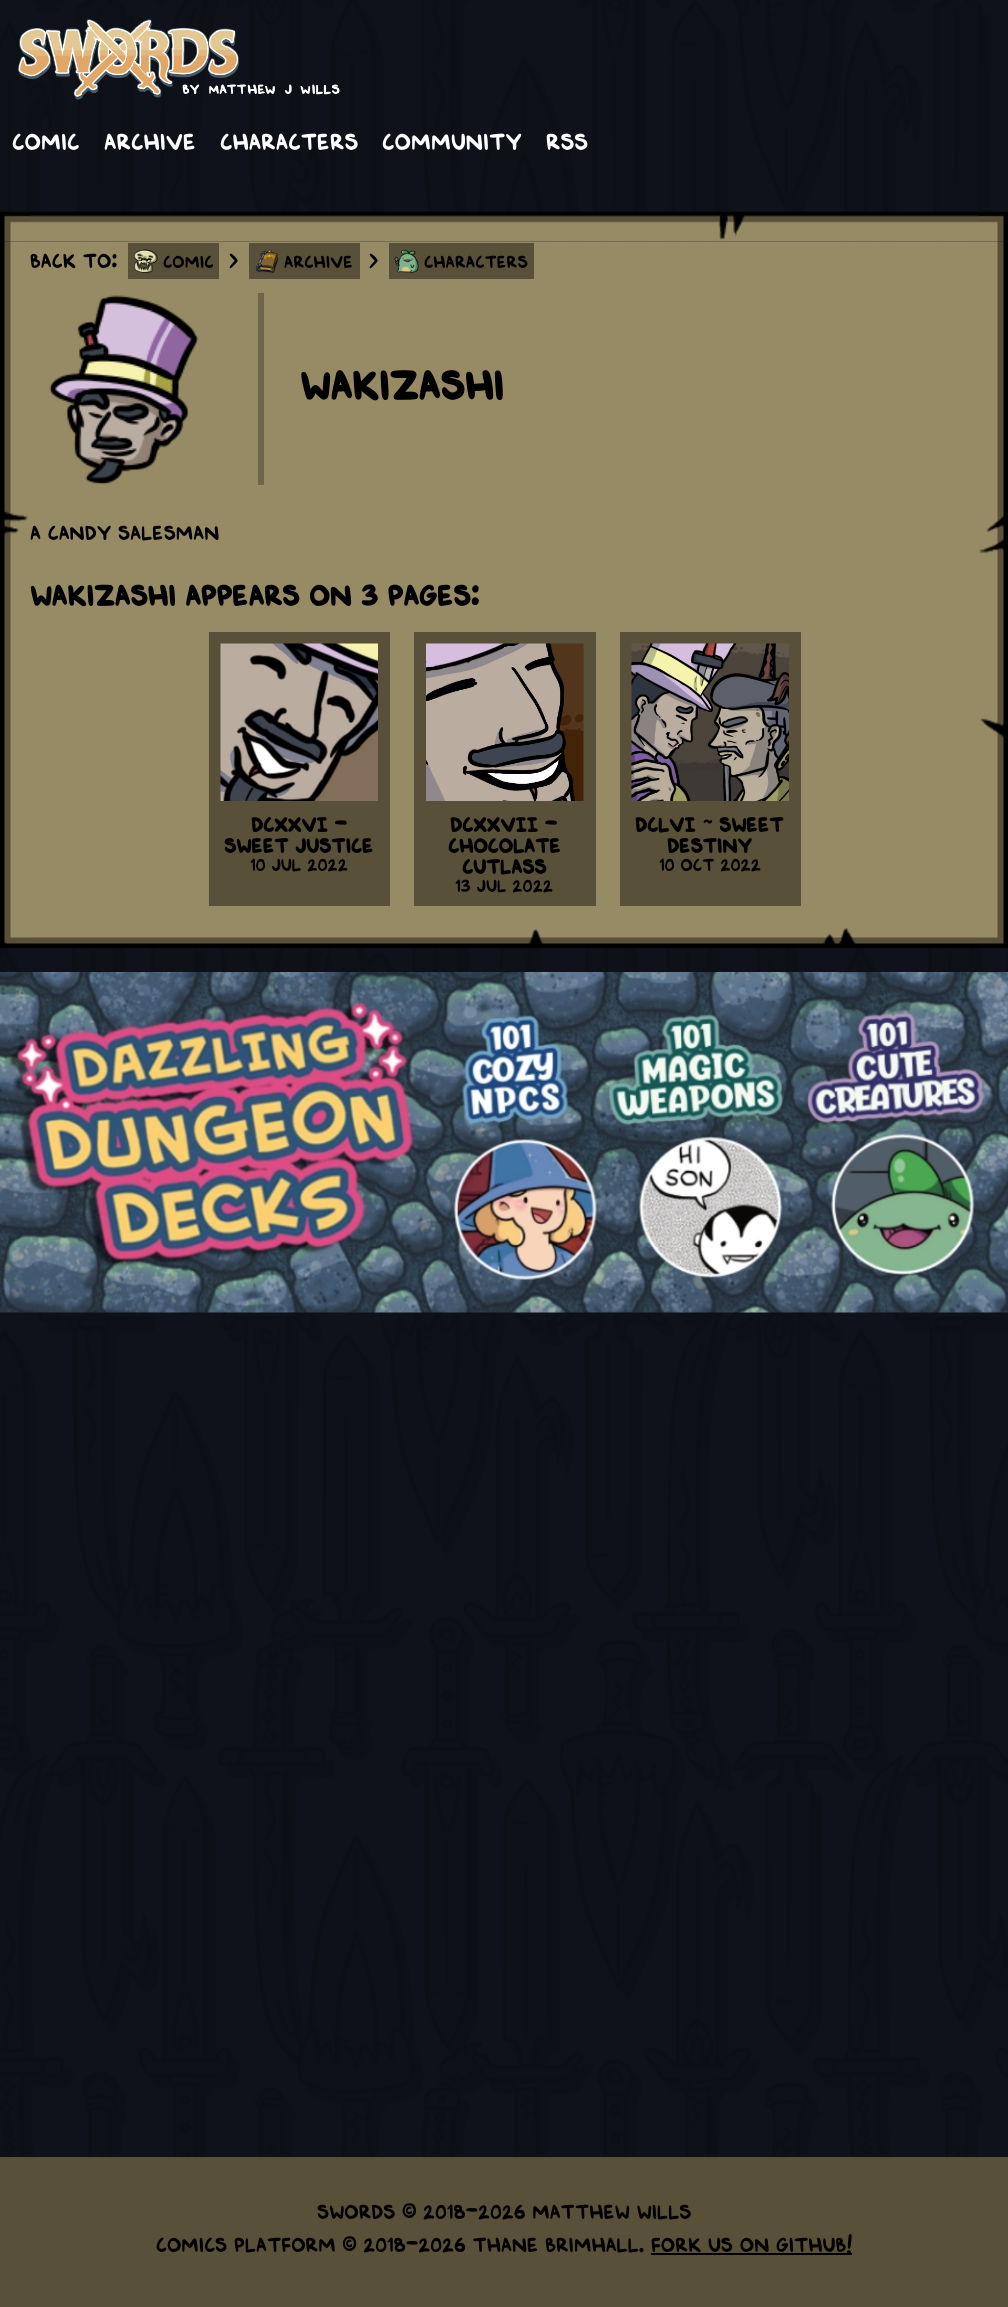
import math
import cairo

surface = cairo.ImageSurface(cairo.FORMAT_RGB24, 1008, 2307)
ctx = cairo.Context(surface)
options = cairo.FontOptions()
options.set_hint_metrics(cairo.HINT_METRICS_OFF)
options.set_hint_style(cairo.HINT_STYLE_NONE)
ctx.set_font_options(options)
ctx.set_miter_limit(4)


def set_color(code):
    ctx.set_source_rgb(*(v / 255 for v in bytes.fromhex(code[-6:])))


def draw_text(x, y, s, family, size, color, bold=False, italic=False):
    ctx.select_font_face(family, cairo.FONT_SLANT_ITALIC if italic else cairo.FONT_SLANT_NORMAL, cairo.FONT_WEIGHT_BOLD if bold else cairo.FONT_WEIGHT_NORMAL)
    ctx.set_font_size(size)
    set_color(color)
    ctx.move_to(x, y)
    ctx.show_text(s)


def fill_rect(x, y, w, h, color):
    set_color(color)
    ctx.rectangle(x, y, w, h)
    ctx.fill()


def draw_image(path, x, y, w, h):
    ctx.save()
    ctx.set_source_surface(cairo.ImageSurface.create_from_png(path), x, y)
    ctx.rectangle(x, y, w, h)
    ctx.fill()
    ctx.restore()


set_color("#ffffff")
ctx.paint()
draw_image("assets/img1.png", 0, 0, 1008, 2157)
draw_image("assets/img2.png", 17, 19, 323, 81)
draw_text(12, 150, "Comic", "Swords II", 24, "#ffffff")
draw_text(104, 150, "Archive", "Swords II", 24, "#ffffff")
draw_text(220, 150, "Characters", "Swords II", 24, "#ffffff")
draw_text(382, 150, "Community", "Swords II", 24, "#ffffff")
draw_text(546, 150, "RSS", "Swords II", 24, "#ffffff")
draw_image("assets/img3.png", 0, 211, 1008, 737)
draw_text(30, 268, "Back to:", "Swords II", 21, "#000000")
fill_rect(128, 243, 91, 36, "#585039")
draw_image("assets/img4.png", 133, 249, 25, 24)
draw_text(163, 268, "Comic", "Swords II", 18, "#000000")
draw_text(229, 268, ">", "Swords II", 21, "#000000")
fill_rect(249, 243, 111, 36, "#585039")
draw_image("assets/img5.png", 255, 249, 24, 24)
draw_text(284, 268, "Archive", "Swords II", 18, "#000000")
draw_text(369, 268, ">", "Swords II", 21, "#000000")
fill_rect(389, 243, 145, 36, "#585039")
draw_image("assets/img6.png", 394, 249, 25, 24)
draw_text(424, 268, "Characters", "Swords II", 18, "#000000")
fill_rect(258, 293, 6, 192, "#6f664a")
draw_image("assets/img7.png", 49, 295, 150, 190)
draw_text(300, 400, "Wakizashi", "Swords II", 42, "#000000", bold=True)
draw_text(30, 540, "A candy salesman", "Swords II", 21, "#000000")
draw_text(30, 606, "Wakizashi appears on 3 Pages:", "Swords II", 30, "#000000", bold=True)
fill_rect(209, 632, 181, 274, "#585039")
draw_image("assets/img8.png", 220, 643, 158, 158)
draw_text(251, 832, "DCXXVI -", "Swords II", 21, "#000000", bold=True)
draw_text(224, 853, "Sweet Justice", "Swords II", 21, "#000000", bold=True)
draw_text(250, 871, "10 Jul 2022", "Swords II", 18, "#000000")
fill_rect(414, 632, 182, 274, "#585039")
draw_image("assets/img9.png", 426, 643, 158, 158)
draw_text(450, 832, "DCXXVII -", "Swords II", 21, "#000000", bold=True)
draw_text(448, 853, "Chocolate", "Swords II", 21, "#000000", bold=True)
draw_text(462, 874, "Cutlass", "Swords II", 21, "#000000", bold=True)
draw_text(455, 892, "13 Jul 2022", "Swords II", 18, "#000000")
fill_rect(620, 632, 181, 274, "#585039")
draw_image("assets/img10.png", 631, 643, 158, 158)
draw_text(635, 832, "DCLVI ~ Sweet", "Swords II", 21, "#000000", bold=True)
draw_text(667, 853, "Destiny", "Swords II", 21, "#000000", bold=True)
draw_text(659, 871, "10 Oct 2022", "Swords II", 18, "#000000")
draw_image("assets/img11.png", 0, 972, 1008, 341)
fill_rect(0, 2157, 1008, 150, "#585039")
draw_text(317, 2219, "Swords © 2018-2026 Matthew Wills", "Swords II", 21, "#000000")
draw_text(156, 2252, "Comics Platform © 2018-2026 Thane Brimhall.", "Swords II", 21, "#000000")
fill_rect(651, 2253, 201, 2, "#000000")
draw_text(651, 2252, "Fork us on GitHub!", "Swords II", 21, "#000000")
surface.write_to_png("output.png")
